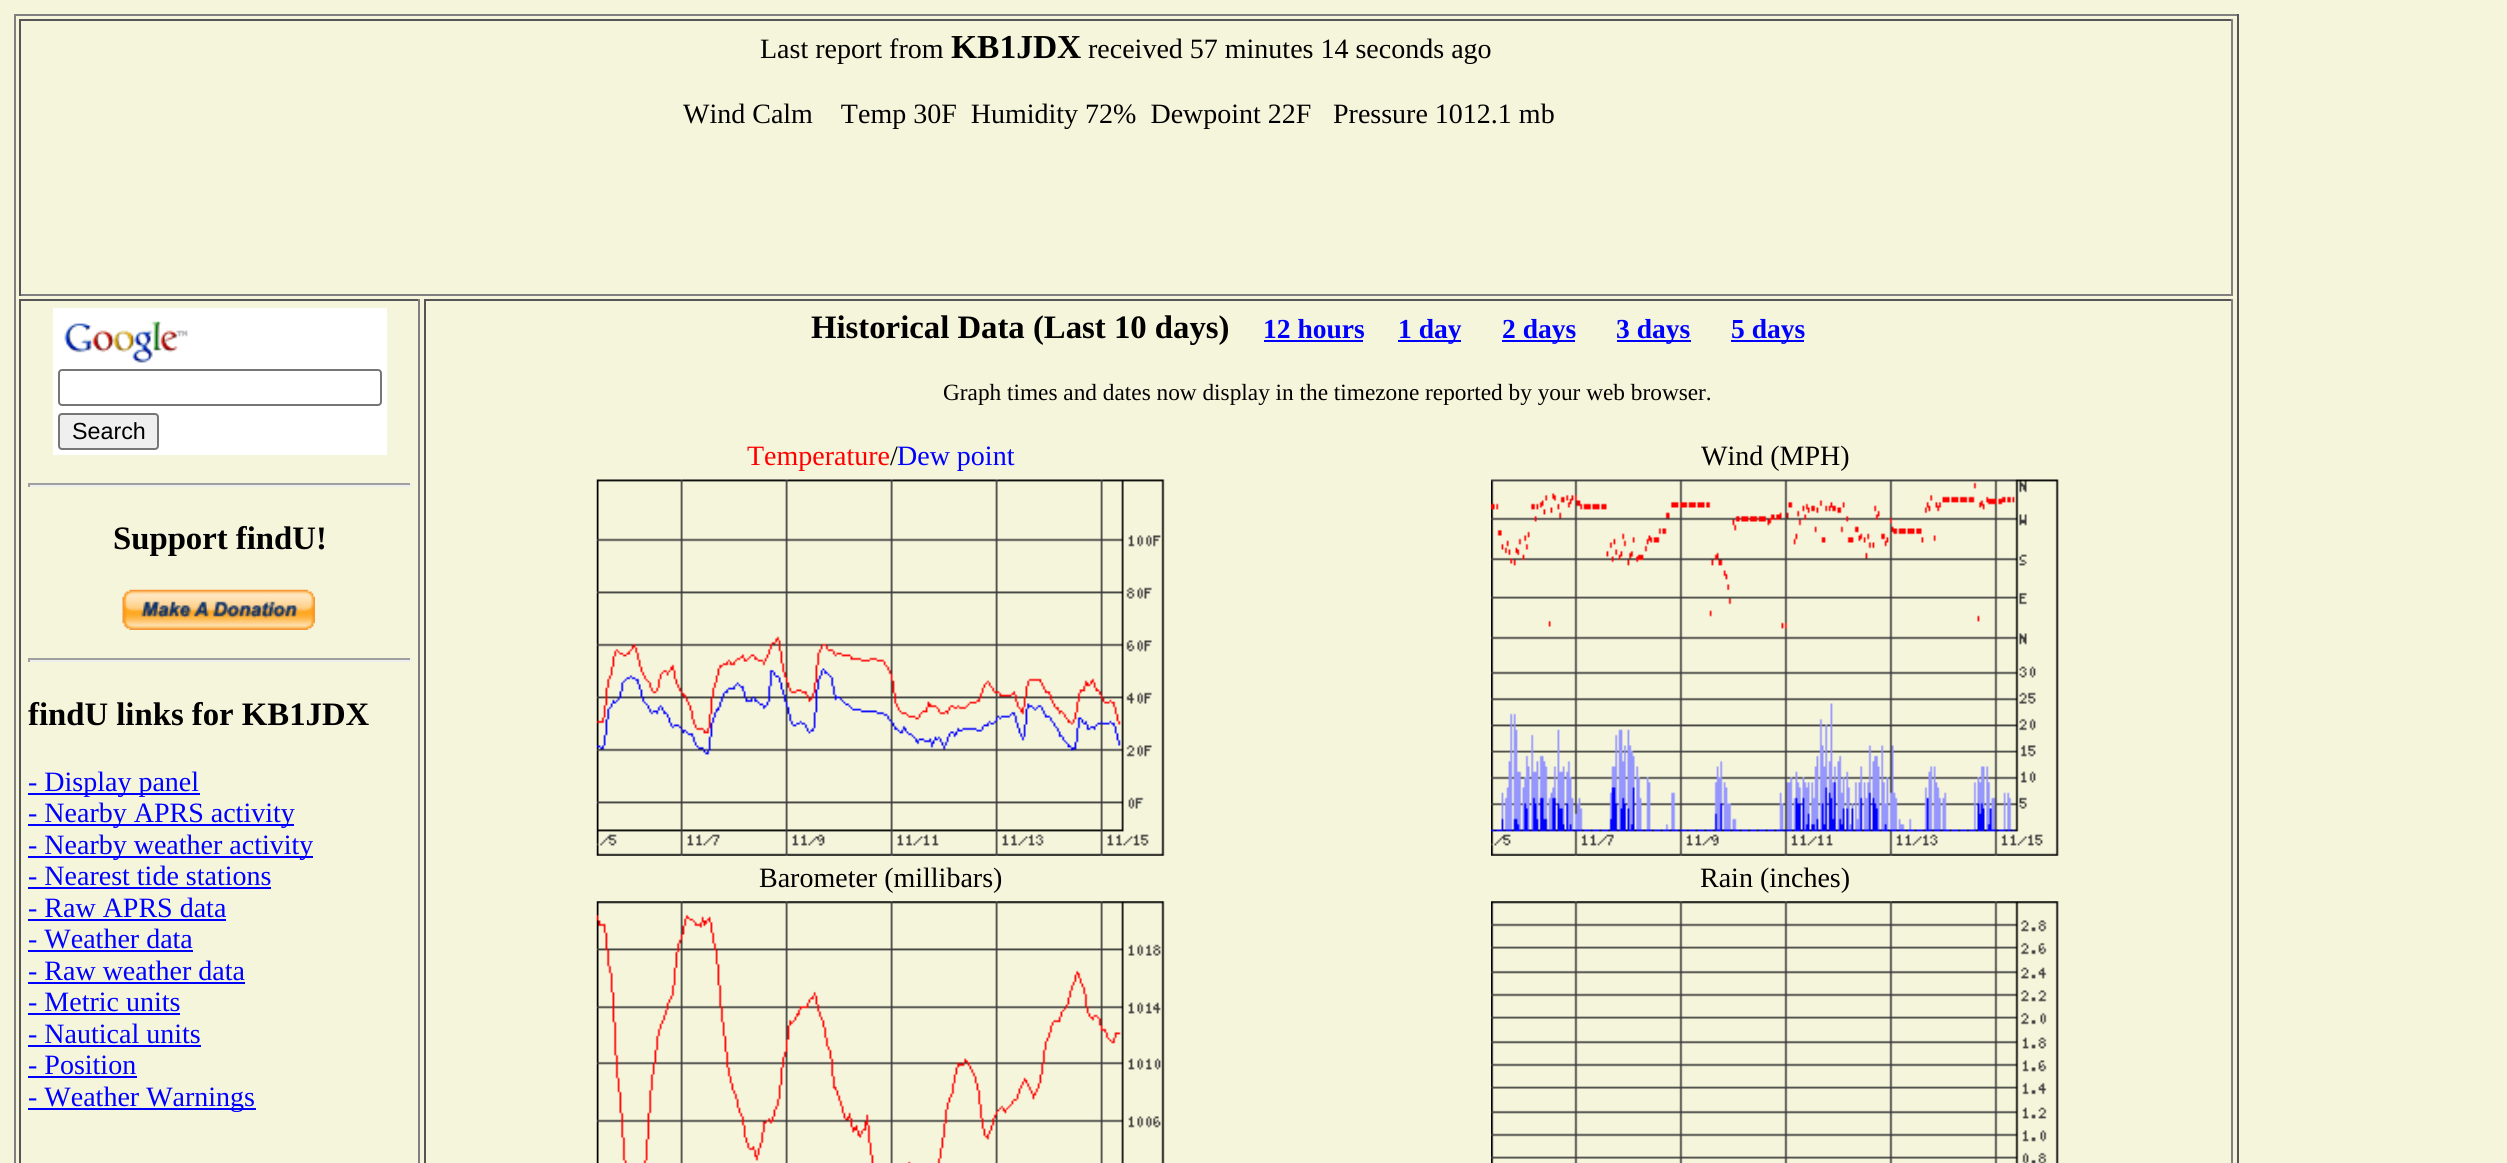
import math
import cairo

surface = cairo.ImageSurface(cairo.FORMAT_RGB24, 2507, 1163)
ctx = cairo.Context(surface)
options = cairo.FontOptions()
options.set_hint_metrics(cairo.HINT_METRICS_OFF)
options.set_hint_style(cairo.HINT_STYLE_NONE)
ctx.set_font_options(options)
ctx.set_miter_limit(4)


def set_color(code):
    ctx.set_source_rgb(*(v / 255 for v in bytes.fromhex(code[-6:])))


def draw_text(x, y, s, family, size, color, bold=False, italic=False):
    ctx.select_font_face(family, cairo.FONT_SLANT_ITALIC if italic else cairo.FONT_SLANT_NORMAL, cairo.FONT_WEIGHT_BOLD if bold else cairo.FONT_WEIGHT_NORMAL)
    ctx.set_font_size(size)
    set_color(color)
    ctx.move_to(x, y)
    ctx.show_text(s)


def fill_rect(x, y, w, h, color):
    set_color(color)
    ctx.rectangle(x, y, w, h)
    ctx.fill()


def rounded_rect(x, y, w, h, r):
    ctx.new_sub_path()
    for i, (u, v) in enumerate([(x + w - r, y + h - r), (x + r, y + h - r), (x + r, y + r), (x + w - r, y + r)]):
        ctx.arc(u, v, r, i * math.pi / 2, (i + 1) * math.pi / 2)
    ctx.close_path()


def draw_image(path, x, y, w, h):
    ctx.save()
    ctx.set_source_surface(cairo.ImageSurface.create_from_png(path), x, y)
    ctx.rectangle(x, y, w, h)
    ctx.fill()
    ctx.restore()


set_color("#f5f5dc")
ctx.paint()
fill_rect(14, 14, 2224, 2, "#808080")
fill_rect(2237, 14, 2, 1149, "#555555")
fill_rect(14, 14, 2, 1149, "#808080")
fill_rect(19, 19, 2214, 2, "#555555")
fill_rect(2231, 19, 2, 277, "#808080")
fill_rect(19, 294, 2214, 2, "#808080")
fill_rect(19, 19, 2, 277, "#555555")
draw_text(760, 58, "Last report from", "Liberation Serif", 28, "#000000")
draw_text(951, 58, "KB1JDX", "Liberation Serif", 33.5, "#000000", bold=True)
draw_text(1088, 58, "received 57 minutes 14 seconds ago", "Liberation Serif", 28, "#000000")
draw_text(683, 123, "Wind Calm    Temp 30F  Humidity 72%  Dewpoint 22F", "Liberation Serif", 28, "#000000")
draw_text(1333, 123, "Pressure 1012.1 mb", "Liberation Serif", 28, "#000000")
fill_rect(19, 299, 401, 2, "#555555")
fill_rect(418, 299, 2, 864, "#808080")
fill_rect(19, 299, 2, 864, "#555555")
fill_rect(53, 308, 334, 147, "#ffffff")
draw_image("assets/img1.png", 64, 321, 124, 42)
rounded_rect(59, 370, 322, 35, 3)
set_color("#767676")
ctx.stroke()
set_color("#efefef")
rounded_rect(59, 414, 99, 35, 3)
ctx.fill_preserve()
set_color("#767676")
ctx.stroke()
draw_text(72, 439, "Search", "Liberation Sans", 23.3, "#000000")
fill_rect(28, 483, 383, 2, "#9f9f9f")
fill_rect(410, 483, 2, 4, "#eeeeee")
fill_rect(28, 485, 383, 2, "#eeeeee")
fill_rect(28, 483, 2, 4, "#9f9f9f")
draw_text(113, 549, "Support findU!", "Liberation Serif", 32.75, "#000000", bold=True)
draw_image("assets/img2.png", 122, 589, 193, 41)
fill_rect(28, 658, 383, 2, "#9f9f9f")
fill_rect(410, 658, 2, 4, "#eeeeee")
fill_rect(28, 660, 383, 2, "#eeeeee")
fill_rect(28, 658, 2, 4, "#9f9f9f")
draw_text(28, 725, "findU links for KB1JDX", "Liberation Serif", 32.75, "#000000", bold=True)
fill_rect(28, 793, 172, 2, "#0000ff")
draw_text(28, 791, "- Display panel", "Liberation Serif", 28, "#0000ff")
fill_rect(28, 824, 266, 2, "#0000ff")
draw_text(28, 822, "- Nearby APRS activity", "Liberation Serif", 28, "#0000ff")
fill_rect(28, 856, 285, 2, "#0000ff")
draw_text(28, 854, "- Nearby weather activity", "Liberation Serif", 28, "#0000ff")
draw_text(28, 885, "- Nearest tide stations", "Liberation Serif", 28, "#0000ff")
fill_rect(28, 887, 243, 2, "#0000ff")
draw_text(28, 917, "- Raw APRS data", "Liberation Serif", 28, "#0000ff")
fill_rect(28, 919, 198, 2, "#0000ff")
draw_text(28, 948, "- Weather data", "Liberation Serif", 28, "#0000ff")
fill_rect(28, 950, 165, 2, "#0000ff")
draw_text(28, 980, "- Raw weather data", "Liberation Serif", 28, "#0000ff")
fill_rect(28, 982, 217, 2, "#0000ff")
draw_text(28, 1011, "- Metric units", "Liberation Serif", 28, "#0000ff")
fill_rect(28, 1013, 152, 2, "#0000ff")
draw_text(28, 1043, "- Nautical units", "Liberation Serif", 28, "#0000ff")
fill_rect(28, 1045, 173, 2, "#0000ff")
draw_text(28, 1074, "- Position", "Liberation Serif", 28, "#0000ff")
fill_rect(28, 1076, 109, 2, "#0000ff")
fill_rect(28, 1108, 228, 2, "#0000ff")
draw_text(28, 1106, "- Weather Warnings", "Liberation Serif", 28, "#0000ff")
fill_rect(424, 299, 1809, 2, "#555555")
fill_rect(2231, 299, 2, 864, "#808080")
fill_rect(424, 299, 2, 864, "#555555")
draw_text(811, 338, "Historical Data (Last 10 days)", "Liberation Serif", 32.75, "#000000", bold=True)
draw_text(1263, 338, "12 hours", "Liberation Serif", 27.5, "#0000ff", bold=True)
fill_rect(1264, 340, 99, 2, "#0000ff")
fill_rect(1398, 340, 63, 2, "#0000ff")
draw_text(1398, 338, "1 day", "Liberation Serif", 27.5, "#0000ff", bold=True)
fill_rect(1502, 340, 73, 2, "#0000ff")
draw_text(1502, 338, "2 days", "Liberation Serif", 27.5, "#0000ff", bold=True)
fill_rect(1617, 340, 74, 2, "#0000ff")
draw_text(1616, 338, "3 days", "Liberation Serif", 27.5, "#0000ff", bold=True)
fill_rect(1731, 340, 73, 2, "#0000ff")
draw_text(1731, 338, "5 days", "Liberation Serif", 27.5, "#0000ff", bold=True)
draw_text(943, 400, "Graph times and dates now display in the timezone reported by your web browser.", "Liberation Serif", 23.3, "#000000")
draw_text(747, 465, "Temperature", "Liberation Serif", 28, "#ff0000")
draw_text(890, 465, "/", "Liberation Serif", 28, "#000000")
draw_text(897, 465, "Dew point", "Liberation Serif", 28, "#0000ff")
draw_text(1701, 465, "Wind (MPH)", "Liberation Serif", 28, "#000000")
draw_image("assets/img3.png", 596, 479, 569, 377)
draw_image("assets/img4.png", 1491, 479, 568, 377)
draw_text(759, 887, "Barometer (millibars)", "Liberation Serif", 28, "#000000")
draw_text(1700, 887, "Rain (inches)", "Liberation Serif", 28, "#000000")
draw_image("assets/img5.png", 596, 901, 569, 262)
draw_image("assets/img6.png", 1491, 901, 568, 262)
surface.write_to_png("output.png")
